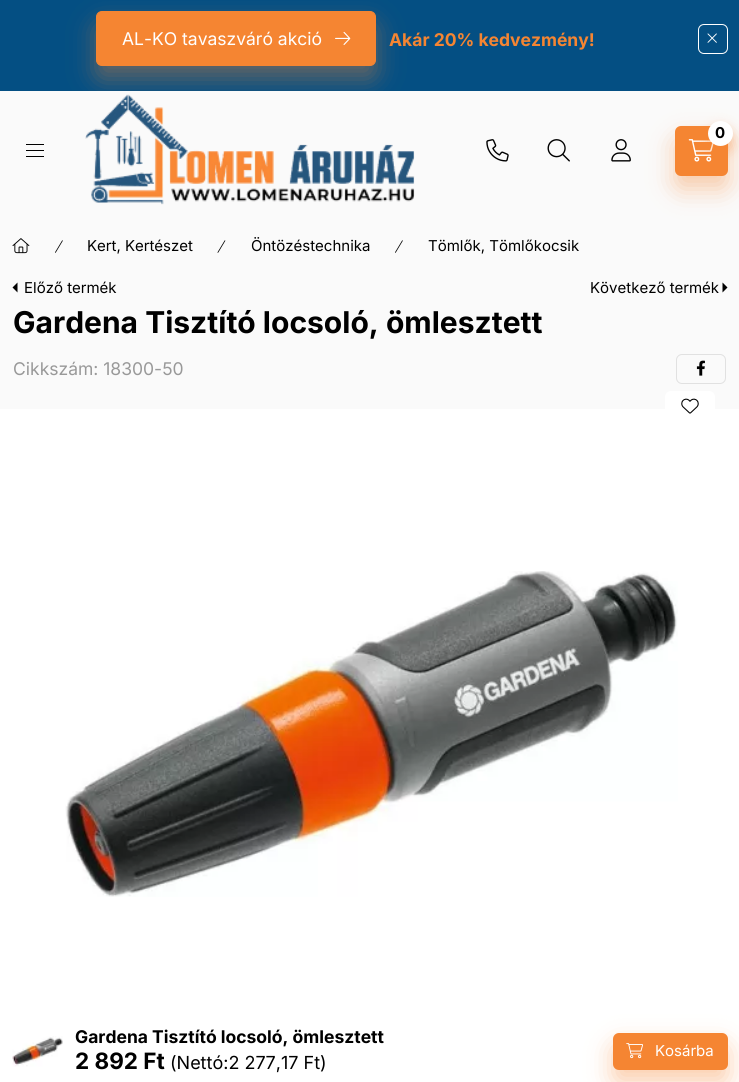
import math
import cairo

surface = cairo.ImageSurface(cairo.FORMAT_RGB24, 739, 1082)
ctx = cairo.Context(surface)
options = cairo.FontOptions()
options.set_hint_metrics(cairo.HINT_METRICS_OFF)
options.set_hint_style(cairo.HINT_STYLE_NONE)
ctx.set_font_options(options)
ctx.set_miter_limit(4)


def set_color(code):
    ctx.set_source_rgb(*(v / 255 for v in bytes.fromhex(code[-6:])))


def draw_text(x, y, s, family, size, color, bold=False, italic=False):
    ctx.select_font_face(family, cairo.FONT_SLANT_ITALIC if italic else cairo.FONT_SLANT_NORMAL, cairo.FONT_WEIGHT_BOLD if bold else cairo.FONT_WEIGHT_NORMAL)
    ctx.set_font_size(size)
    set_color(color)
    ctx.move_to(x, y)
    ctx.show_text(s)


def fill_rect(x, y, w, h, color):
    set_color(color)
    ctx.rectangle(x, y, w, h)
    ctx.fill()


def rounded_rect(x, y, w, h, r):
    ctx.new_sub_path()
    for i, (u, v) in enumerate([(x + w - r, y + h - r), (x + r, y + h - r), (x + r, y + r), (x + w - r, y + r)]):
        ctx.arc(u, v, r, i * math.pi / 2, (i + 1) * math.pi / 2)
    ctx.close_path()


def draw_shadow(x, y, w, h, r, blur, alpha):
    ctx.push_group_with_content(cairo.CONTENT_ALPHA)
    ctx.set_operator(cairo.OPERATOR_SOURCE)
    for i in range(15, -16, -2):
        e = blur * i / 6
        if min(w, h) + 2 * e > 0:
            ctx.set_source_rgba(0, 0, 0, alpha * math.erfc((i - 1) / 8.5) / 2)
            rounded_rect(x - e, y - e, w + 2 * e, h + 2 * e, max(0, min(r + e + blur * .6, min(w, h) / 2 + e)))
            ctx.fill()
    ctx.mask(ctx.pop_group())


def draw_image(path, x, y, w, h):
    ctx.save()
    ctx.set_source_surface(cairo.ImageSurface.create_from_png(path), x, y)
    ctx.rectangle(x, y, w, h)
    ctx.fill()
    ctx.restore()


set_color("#fafafa")
ctx.paint()
fill_rect(0, 0, 739, 91, "#044f83")
draw_image("assets/img3.png", 85, 94, 330, 111)
ctx.save()
ctx.rectangle(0, 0, 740, 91)
ctx.clip()
set_color("#f58532")
draw_shadow(96, 24, 280, 55, 6, 12.5, 0.4)
ctx.restore()
set_color("#f58532")
rounded_rect(96.5, 11.5, 279, 54, 5.5)
ctx.fill_preserve()
ctx.set_line_width(1)
ctx.stroke()
draw_text(122, 45, "AL-KO tavaszváró akció", "Inter", 17.5, "#ffffff")
draw_image("assets/img1.png", 335, 31, 16, 14)
draw_text(389, 46, "Akár 20% kedvezmény!", "Inter", 17.5, "#f58532", bold=True)
rounded_rect(698.5, 24.5, 29, 29, 5.5)
set_color("#ffffff")
ctx.stroke()
draw_image("assets/img2.png", 707, 33, 10, 10)
fill_rect(26, 144, 18, 1, "#000000")
fill_rect(26, 150, 18, 1, "#000000")
fill_rect(26, 156, 18, 1, "#000000")
draw_image("assets/img4.png", 486, 139, 23, 23)
set_color("#f58532")
draw_shadow(675, 139, 53, 50, 6, 12.5, 0.4)
set_color("#f58532")
rounded_rect(675, 126, 53, 50, 6)
ctx.fill()
draw_image("assets/img5.png", 688, 139, 26, 23)
set_color("#f58532")
draw_shadow(708, 128, 25, 25, 12.5, 6, 0.4)
set_color("#ffffff")
ctx.arc(720.5, 133.5, 12.5, 0, 2 * math.pi)
ctx.fill()
draw_text(715, 138, "0", "Inter", 15, "#000000", bold=True)
draw_image("assets/img6.png", 547, 139, 23, 23)
draw_image("assets/img7.png", 611, 139, 20, 23)
draw_image("assets/img8.png", 12, 238, 18, 16)
draw_image("assets/img9.png", 55, 240, 8, 13)
draw_text(87, 251, "Kert, Kertészet", "Inter", 15, "#000000")
draw_image("assets/img10.png", 217, 240, 9, 13)
draw_text(251, 251, "Öntözéstechnika", "Inter", 15, "#000000")
draw_image("assets/img9.png", 395, 240, 8, 13)
draw_text(428, 251, "Tömlők, Tömlőkocsik", "Inter", 15, "#000000")
ctx.new_path()
ctx.move_to(17.5, 292.5)
ctx.line_to(17.5, 282.5)
ctx.line_to(12.5, 287.5)
ctx.close_path()
ctx.fill()
draw_text(24, 293, "Előző termék", "Inter", 15, "#000000")
draw_text(590, 293, "Következő termék", "Inter", 15, "#000000")
ctx.new_path()
ctx.move_to(722.5, 292.5)
ctx.line_to(722.5, 282.5)
ctx.line_to(727.5, 287.5)
ctx.close_path()
ctx.fill()
draw_text(13, 333, "Gardena Tisztító locsoló, ömlesztett", "Inter", 30, "#000000", bold=True)
draw_text(13, 375, "Cikkszám: 18300-50", "Inter", 17.5, "#999999")
rounded_rect(676.5, 354.5, 49, 29, 5.5)
set_color("#e1e1e1")
ctx.stroke()
draw_image("assets/img11.png", 696, 360, 9, 16)
fill_rect(0, 409, 739, 673, "#ffffff")
rounded_rect(665, 391, 50, 30, 6)
ctx.fill()
draw_image("assets/img12.png", 681, 398, 18, 16)
draw_image("assets/img13.png", 65, 571, 613, 326)
draw_image("assets/img14.png", 12, 1036, 51, 31)
draw_text(75, 1043, "Gardena Tisztító locsoló, ömlesztett", "Inter", 17.5, "#000000", bold=True)
draw_text(75, 1069, "2 892 Ft", "Inter", 22.5, "#000000", bold=True)
draw_text(170, 1069, "(Nettó:2 277,17 Ft)", "Inter", 18, "#000000")
set_color("#f58532")
draw_shadow(613, 1045, 115, 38, 6, 12.5, 0.4)
set_color("#f58532")
rounded_rect(613, 1033, 115, 37, 6)
ctx.fill()
draw_image("assets/img15.png", 626, 1043, 17, 16)
draw_text(655, 1056, "Kosárba", "Inter", 15, "#ffffff")
surface.write_to_png("output.png")
